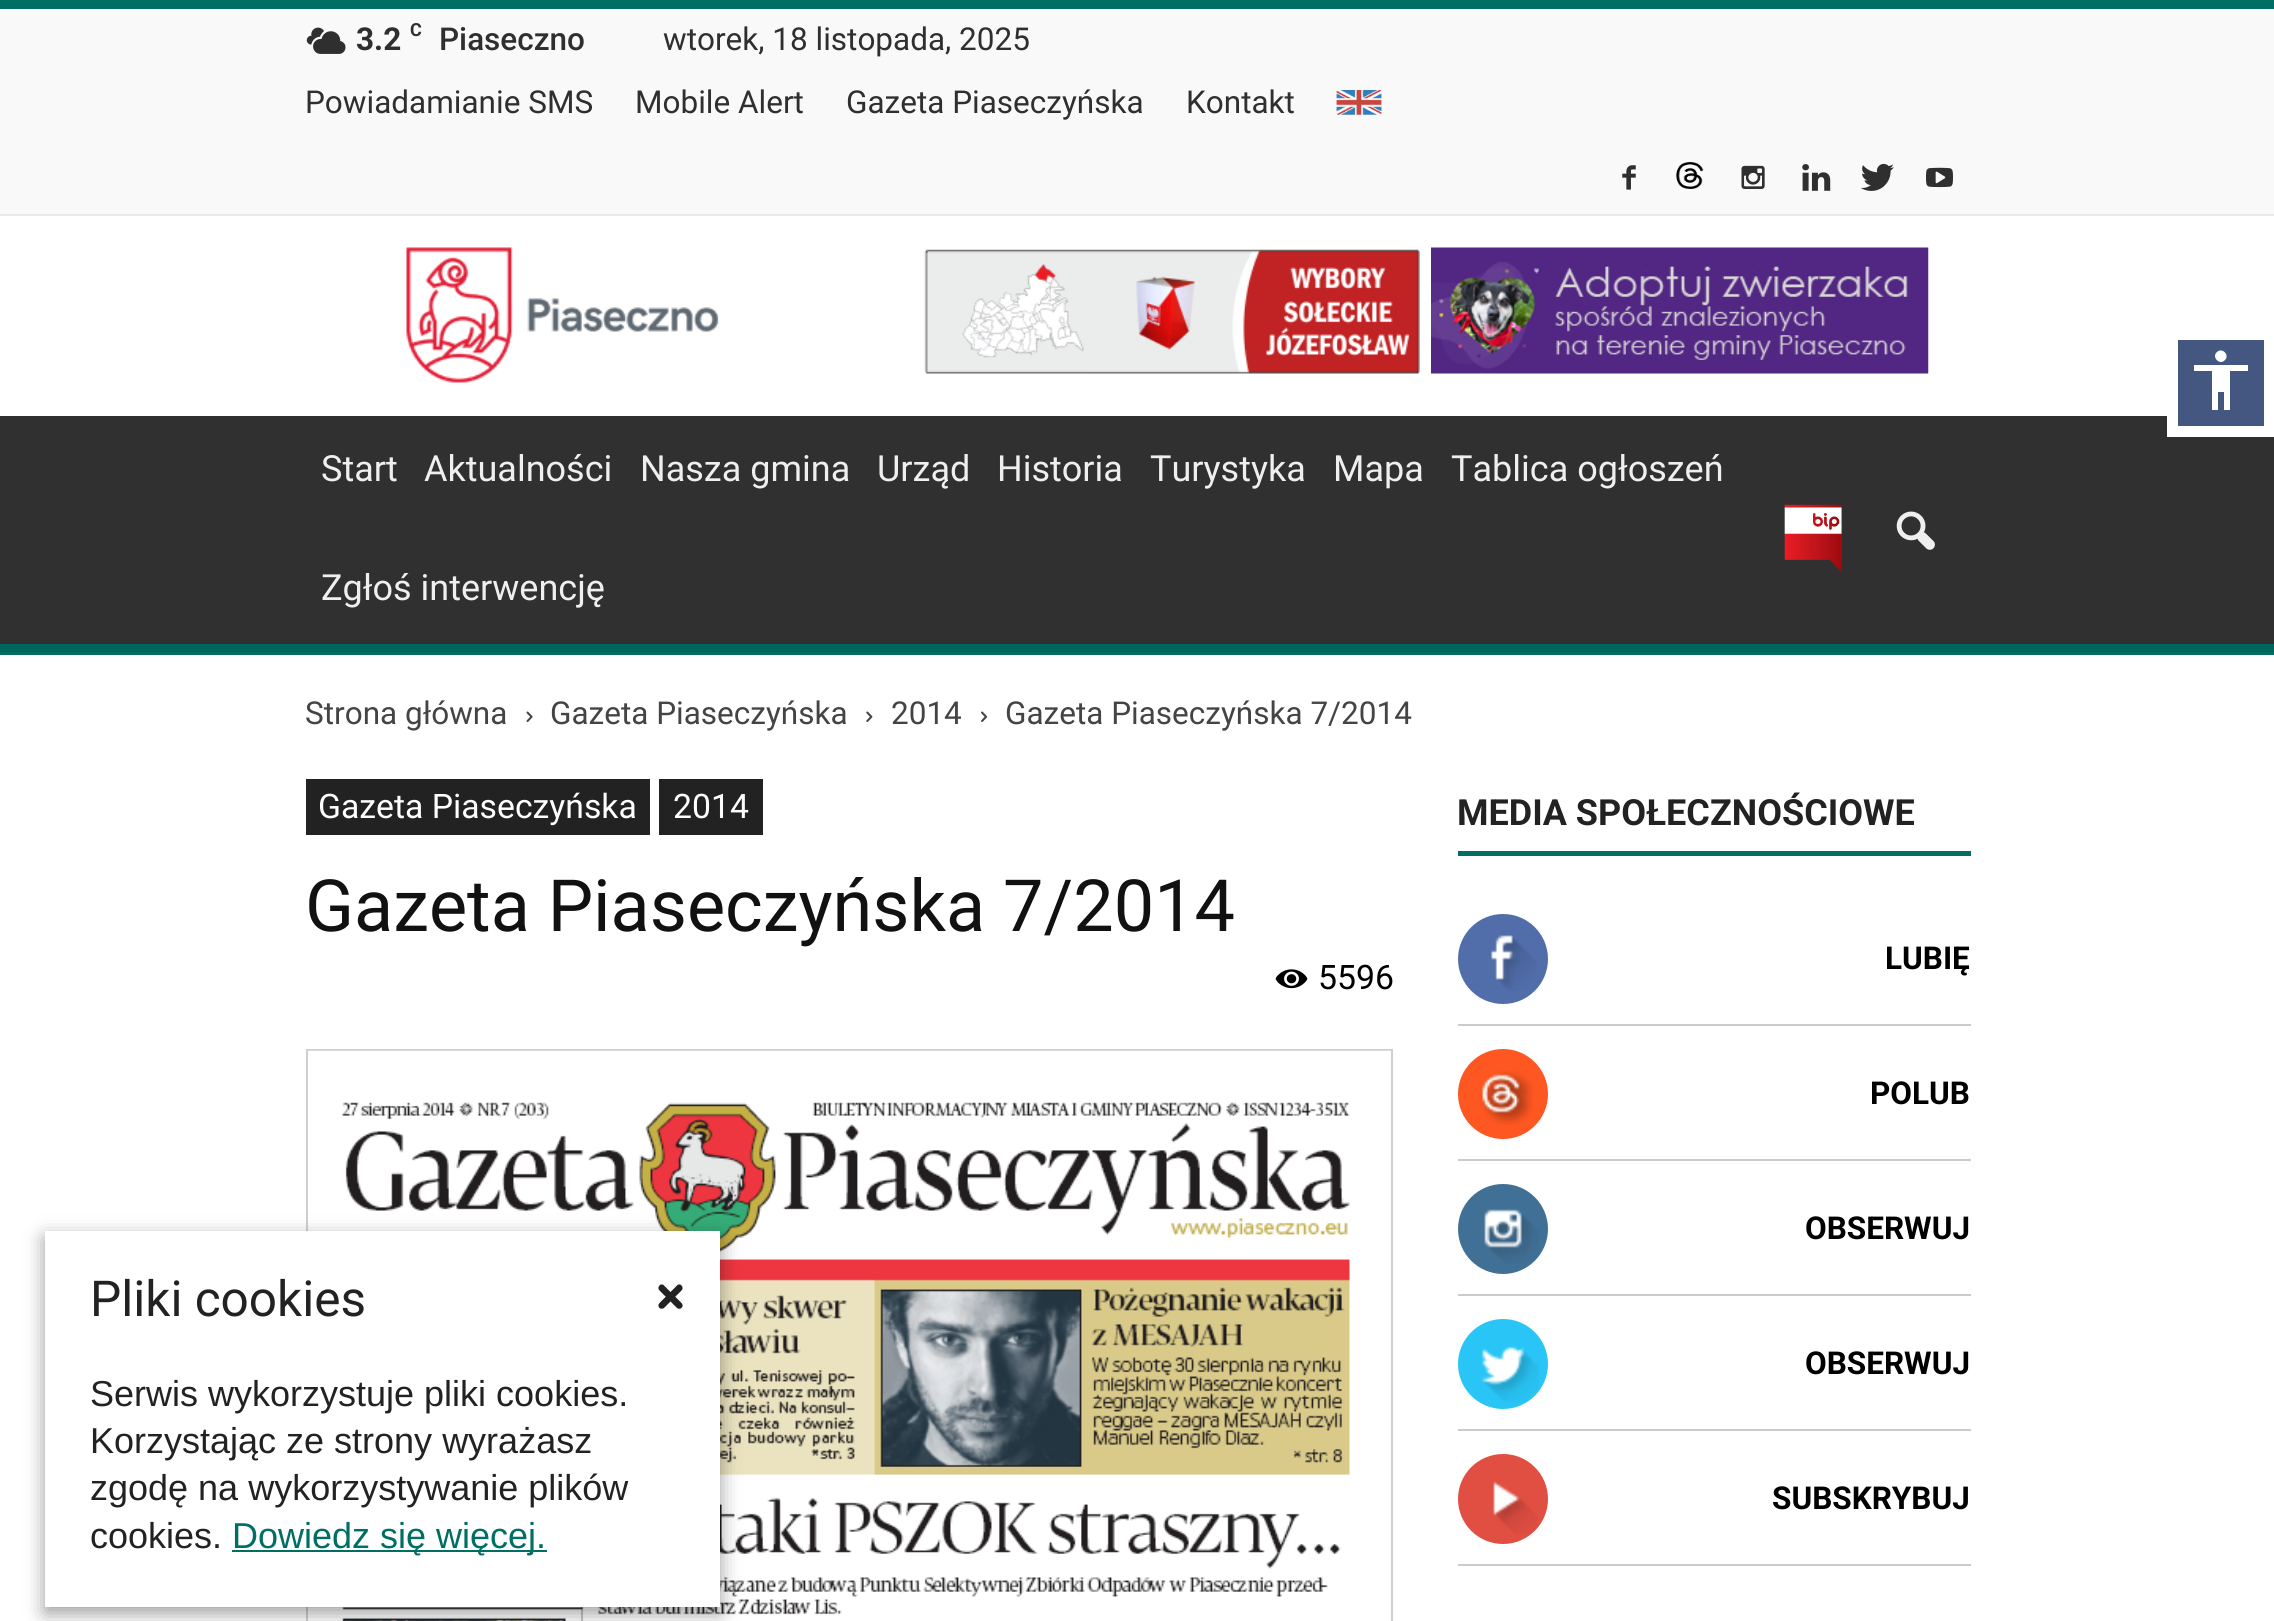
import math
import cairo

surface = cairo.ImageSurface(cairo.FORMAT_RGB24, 2274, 1621)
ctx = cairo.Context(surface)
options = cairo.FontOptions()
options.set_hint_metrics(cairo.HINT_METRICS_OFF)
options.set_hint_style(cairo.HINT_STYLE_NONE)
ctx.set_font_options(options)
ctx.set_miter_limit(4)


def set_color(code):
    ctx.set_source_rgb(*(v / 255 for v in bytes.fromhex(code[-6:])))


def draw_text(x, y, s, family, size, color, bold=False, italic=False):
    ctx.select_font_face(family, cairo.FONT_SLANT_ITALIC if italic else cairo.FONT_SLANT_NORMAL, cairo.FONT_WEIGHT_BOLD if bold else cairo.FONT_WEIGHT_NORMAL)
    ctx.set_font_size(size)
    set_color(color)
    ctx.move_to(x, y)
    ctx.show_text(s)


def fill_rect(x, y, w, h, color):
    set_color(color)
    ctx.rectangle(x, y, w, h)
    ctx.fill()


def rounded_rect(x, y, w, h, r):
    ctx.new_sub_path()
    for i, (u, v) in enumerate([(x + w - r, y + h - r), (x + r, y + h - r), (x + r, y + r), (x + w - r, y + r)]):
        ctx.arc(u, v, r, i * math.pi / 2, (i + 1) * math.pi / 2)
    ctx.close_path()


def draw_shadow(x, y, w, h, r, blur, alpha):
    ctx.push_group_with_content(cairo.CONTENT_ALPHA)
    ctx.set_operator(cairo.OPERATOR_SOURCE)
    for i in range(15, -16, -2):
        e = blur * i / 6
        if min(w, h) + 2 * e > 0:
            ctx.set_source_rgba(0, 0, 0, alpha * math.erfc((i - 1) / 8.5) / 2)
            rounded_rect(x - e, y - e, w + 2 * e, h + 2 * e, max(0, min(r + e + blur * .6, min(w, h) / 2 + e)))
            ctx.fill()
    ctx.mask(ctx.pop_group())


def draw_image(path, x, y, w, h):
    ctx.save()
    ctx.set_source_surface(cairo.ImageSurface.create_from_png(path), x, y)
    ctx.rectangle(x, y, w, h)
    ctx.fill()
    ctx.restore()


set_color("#ffffff")
ctx.paint()
fill_rect(0, 9, 2274, 205, "#f9f9f9")
fill_rect(0, 0, 2274, 9, "#006e64")
fill_rect(0, 214, 2274, 2, "#e9e9e9")
draw_image("assets/img1.png", 306, 27, 40, 27)
draw_text(356, 50, "3.2", "Roboto", 31.5, "#2f2f2f", bold=True)
draw_text(410, 36, "C", "Roboto", 18, "#2f2f2f", bold=True)
draw_text(439, 50, "Piaseczno", "Roboto Medium", 31.5, "#2f2f2f")
draw_text(663, 50, "wtorek, 18 listopada, 2025", "Roboto", 31.5, "#2f2f2f")
draw_text(305, 113, "Powiadamianie SMS", "Roboto", 31.5, "#2f2f2f")
draw_text(635, 113, "Mobile Alert", "Roboto", 31.5, "#2f2f2f")
draw_text(846, 113, "Gazeta Piaseczyńska", "Roboto", 31.5, "#2f2f2f")
draw_text(1186, 113, "Kontakt", "Roboto", 31.5, "#2f2f2f")
draw_image("assets/img2.png", 1336, 90, 46, 25)
draw_image("assets/img3.png", 1622, 165, 14, 25)
draw_image("assets/img4.png", 1676, 162, 28, 27)
draw_image("assets/img5.png", 1741, 165, 24, 24)
draw_image("assets/img6.png", 1802, 164, 29, 27)
draw_image("assets/img7.png", 1861, 163, 33, 28)
draw_image("assets/img8.png", 1926, 167, 27, 21)
draw_image("assets/img9.png", 406, 247, 313, 136)
draw_image("assets/img10.png", 924, 249, 496, 125)
draw_image("assets/img11.png", 1431, 247, 498, 127)
fill_rect(0, 416, 2274, 228, "#303030")
draw_text(321, 481, "Start", "Roboto", 36, "#efefef")
draw_text(424, 481, "Aktualności", "Roboto", 36, "#efefef")
draw_text(640, 481, "Nasza gmina", "Roboto", 36, "#efefef")
draw_text(877, 481, "Urząd", "Roboto", 36, "#efefef")
draw_text(997, 481, "Historia", "Roboto", 36, "#efefef")
draw_text(1150, 481, "Turystyka", "Roboto", 36, "#efefef")
draw_text(1333, 481, "Mapa", "Roboto", 36, "#efefef")
draw_text(1451, 481, "Tablica ogłoszeń", "Roboto", 36, "#efefef")
draw_text(321, 600, "Zgłoś interwencję", "Roboto", 36, "#efefef")
draw_image("assets/img12.png", 1784, 504, 58, 68)
draw_image("assets/img13.png", 1896, 511, 39, 39)
fill_rect(0, 644, 2274, 11, "#006e64")
draw_image("assets/img14.png", 0, 644, 2274, 10)
draw_text(305, 724, "Strona główna", "Roboto", 31.5, "#444444")
draw_image("assets/img15.png", 526, 711, 7, 11)
draw_text(550, 724, "Gazeta Piaseczyńska", "Roboto", 31.5, "#444444")
draw_image("assets/img16.png", 866, 711, 7, 11)
draw_text(891, 724, "2014", "Roboto", 31.5, "#444444")
draw_image("assets/img17.png", 981, 711, 7, 11)
draw_text(1005, 724, "Gazeta Piaseczyńska 7/2014", "Roboto", 31.5, "#444444")
fill_rect(306, 779, 344, 56, "#222222")
draw_text(318, 818, "Gazeta Piaseczyńska", "Roboto", 33.75, "#ffffff")
fill_rect(659, 779, 104, 56, "#222222")
draw_text(673, 818, "2014", "Roboto", 33.75, "#ffffff")
draw_text(305, 931, "Gazeta Piaseczyńska 7/2014", "Roboto", 72, "#111111")
draw_image("assets/img18.png", 1275, 969, 33, 20)
draw_text(1318, 989, "5596", "Roboto", 33.75, "#000000")
ctx.rectangle(307, 1050, 1085, 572)
set_color("#cfcfcf")
ctx.stroke()
draw_image("assets/img19.png", 308, 1050, 1083, 571)
fill_rect(1458, 851, 513, 5, "#006e64")
draw_text(1457, 825, "MEDIA SPOŁECZNOŚCIOWE", "Roboto", 36, "#222222", bold=True)
fill_rect(1458, 1024, 513, 2, "#cbcbcb")
set_color("#516eab")
ctx.new_path()
ctx.arc(1503, 959, 45, 0, 2 * math.pi)
ctx.fill()
draw_image("assets/img20.png", 1491, 935, 46, 56)
draw_text(1885, 969, "LUBIĘ", "Roboto", 31.5, "#000000", bold=True)
fill_rect(1458, 1159, 513, 2, "#cbcbcb")
set_color("#ff5722")
ctx.new_path()
ctx.arc(1503, 1094, 45, 0, 2 * math.pi)
ctx.fill()
draw_image("assets/img21.png", 1481, 1071, 52, 54)
draw_text(1870, 1104, "POLUB", "Roboto", 31.5, "#000000", bold=True)
fill_rect(1458, 1294, 513, 2, "#cbcbcb")
set_color("#417096")
ctx.new_path()
ctx.arc(1503, 1229, 45, 0, 2 * math.pi)
ctx.fill()
draw_image("assets/img22.png", 1484, 1209, 55, 55)
draw_text(1805, 1239, "OBSERWUJ", "Roboto", 31.5, "#000000", bold=True)
fill_rect(1458, 1429, 513, 2, "#cbcbcb")
set_color("#29c5f6")
ctx.new_path()
ctx.arc(1503, 1364, 45, 0, 2 * math.pi)
ctx.fill()
draw_image("assets/img23.png", 1481, 1346, 58, 56)
draw_text(1805, 1374, "OBSERWUJ", "Roboto", 31.5, "#000000", bold=True)
fill_rect(1458, 1564, 513, 2, "#cbcbcb")
set_color("#e14e42")
ctx.new_path()
ctx.arc(1503, 1499, 45, 0, 2 * math.pi)
ctx.fill()
draw_image("assets/img24.png", 1493, 1481, 45, 53)
draw_text(1772, 1509, "SUBSKRYBUJ", "Roboto", 31.5, "#000000", bold=True)
set_color("#445781")
ctx.rectangle(2172.5, 334.5, 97, 97)
ctx.fill_preserve()
set_color("#ffffff")
ctx.set_line_width(11)
ctx.stroke()
ctx.new_path()
ctx.move_to(2248, 371)
ctx.line_to(2230, 371)
ctx.line_to(2230, 410)
ctx.line_to(2224, 410)
ctx.line_to(2224, 392)
ctx.line_to(2218, 392)
ctx.line_to(2218, 410)
ctx.line_to(2212, 410)
ctx.line_to(2212, 371)
ctx.line_to(2194, 371)
ctx.line_to(2194, 365)
ctx.line_to(2248, 365)
ctx.close_path()
ctx.move_to(2217, 352)
ctx.curve_to(2222, 347, 2230, 355, 2225, 360)
ctx.curve_to(2220, 366, 2211, 357, 2217, 352)
ctx.close_path()
ctx.fill()
set_color("#000000")
draw_shadow(45, 1238, 675, 375, 0, 10, 0.4)
fill_rect(45, 1231, 675, 376, "#ffffff")
draw_text(90, 1316, "Pliki cookies", "Roboto", 49.5, "#222222")
ctx.new_path()
ctx.move_to(664, 1285.5)
ctx.line_to(681.5, 1303)
ctx.curve_to(683, 1304.5, 683, 1306.5, 681.5, 1308)
ctx.curve_to(680.5, 1309, 678, 1309, 677, 1308)
ctx.line_to(659.5, 1290.5)
ctx.curve_to(658, 1289, 658, 1287, 659.5, 1285.5)
ctx.curve_to(660.5, 1284, 663, 1284, 664, 1285.5)
ctx.close_path()
ctx.fill()
ctx.new_path()
ctx.move_to(659.5, 1303)
ctx.line_to(677, 1285.5)
ctx.curve_to(678, 1284, 680.5, 1284, 681.5, 1285.5)
ctx.curve_to(683, 1287, 683, 1289, 681.5, 1290.5)
ctx.line_to(664, 1308)
ctx.curve_to(663, 1309, 660.5, 1309, 659.5, 1308)
ctx.curve_to(658, 1306.5, 658, 1304.5, 659.5, 1303)
ctx.close_path()
ctx.fill()
draw_text(90, 1406, "Serwis wykorzystuje pliki cookies.", "Liberation Sans", 36, "#222222")
draw_text(90, 1453, "Korzystając ze strony wyrażasz", "Liberation Sans", 36, "#222222")
draw_text(90, 1500, "zgodę na wykorzystywanie plików", "Liberation Sans", 36, "#222222")
draw_text(90, 1548, "cookies.", "Liberation Sans", 36, "#222222")
fill_rect(232, 1550, 315, 2, "#006e64")
draw_text(232, 1548, "Dowiedz się więcej.", "Liberation Sans", 36, "#006e64")
surface.write_to_png("output.png")
